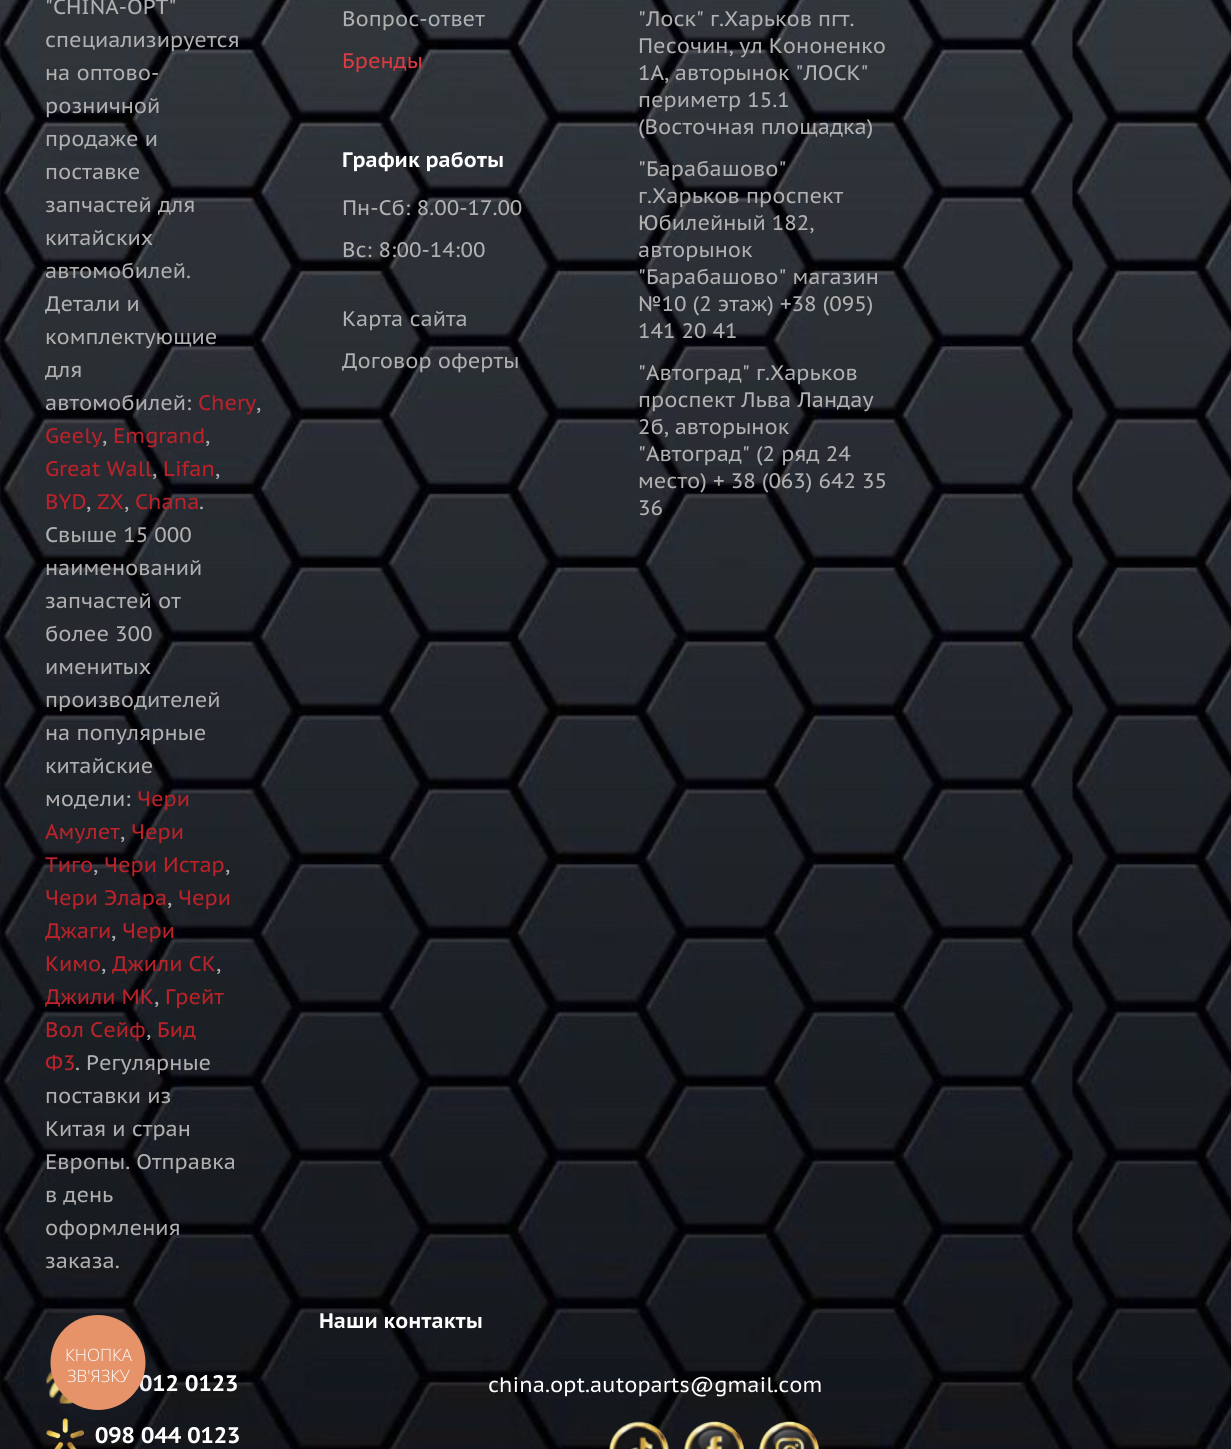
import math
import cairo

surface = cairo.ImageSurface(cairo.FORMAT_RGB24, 1231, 1449)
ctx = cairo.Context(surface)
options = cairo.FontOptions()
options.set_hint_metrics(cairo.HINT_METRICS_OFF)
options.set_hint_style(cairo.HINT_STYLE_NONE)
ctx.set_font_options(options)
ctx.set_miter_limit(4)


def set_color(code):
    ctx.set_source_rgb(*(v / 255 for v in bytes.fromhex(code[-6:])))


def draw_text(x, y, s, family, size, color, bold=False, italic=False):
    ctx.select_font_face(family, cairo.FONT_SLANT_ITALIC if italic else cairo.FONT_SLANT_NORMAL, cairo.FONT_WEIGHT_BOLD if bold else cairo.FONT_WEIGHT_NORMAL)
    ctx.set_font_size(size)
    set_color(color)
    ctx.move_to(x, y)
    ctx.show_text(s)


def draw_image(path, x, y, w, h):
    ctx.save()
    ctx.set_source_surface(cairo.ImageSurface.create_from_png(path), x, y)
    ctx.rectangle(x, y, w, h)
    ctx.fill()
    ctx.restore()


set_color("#ffffff")
ctx.paint()
draw_image("assets/img1.png", 0, 0, 1231, 1449)
draw_text(45, 14, "\"CHINA-OPT\"", "PT Sans Caption", 21, "#b0b0b0")
draw_text(45, 47, "специализируется", "PT Sans Caption", 21, "#b0b0b0")
draw_text(45, 80, "на оптово-", "PT Sans Caption", 21, "#b0b0b0")
draw_text(45, 113, "розничной", "PT Sans Caption", 21, "#b0b0b0")
draw_text(45, 146, "продаже и", "PT Sans Caption", 21, "#b0b0b0")
draw_text(45, 179, "поставке", "PT Sans Caption", 21, "#b0b0b0")
draw_text(45, 212, "запчастей для", "PT Sans Caption", 21, "#b0b0b0")
draw_text(45, 245, "китайских", "PT Sans Caption", 21, "#b0b0b0")
draw_text(45, 278, "автомобилей.", "PT Sans Caption", 21, "#b0b0b0")
draw_text(45, 311, "Детали и", "PT Sans Caption", 21, "#b0b0b0")
draw_text(45, 344, "комплектующие", "PT Sans Caption", 21, "#b0b0b0")
draw_text(45, 377, "для", "PT Sans Caption", 21, "#b0b0b0")
draw_text(45, 410, "автомобилей:", "PT Sans Caption", 21, "#b0b0b0")
draw_text(198, 410, "Chery", "PT Sans Caption", 21, "#bb2229")
draw_text(256, 410, ",", "PT Sans Caption", 21, "#b0b0b0")
draw_text(45, 443, "Geely", "PT Sans Caption", 21, "#bb2229")
draw_text(102, 443, ",", "PT Sans Caption", 21, "#b0b0b0")
draw_text(113, 443, "Emgrand", "PT Sans Caption", 21, "#bb2229")
draw_text(205, 443, ",", "PT Sans Caption", 21, "#b0b0b0")
draw_text(45, 476, "Great Wall", "PT Sans Caption", 21, "#bb2229")
draw_text(152, 476, ",", "PT Sans Caption", 21, "#b0b0b0")
draw_text(163, 476, "Lifan", "PT Sans Caption", 21, "#bb2229")
draw_text(215, 476, ",", "PT Sans Caption", 21, "#b0b0b0")
draw_text(45, 509, "BYD", "PT Sans Caption", 21, "#bb2229")
draw_text(86, 509, ",", "PT Sans Caption", 21, "#b0b0b0")
draw_text(97, 509, "ZX", "PT Sans Caption", 21, "#bb2229")
draw_text(124, 509, ",", "PT Sans Caption", 21, "#b0b0b0")
draw_text(135, 509, "Chana", "PT Sans Caption", 21, "#bb2229")
draw_text(199, 509, ".", "PT Sans Caption", 21, "#b0b0b0")
draw_text(45, 542, "Свыше 15 000", "PT Sans Caption", 21, "#b0b0b0")
draw_text(45, 575, "наименований", "PT Sans Caption", 21, "#b0b0b0")
draw_text(45, 608, "запчастей от", "PT Sans Caption", 21, "#b0b0b0")
draw_text(45, 641, "более 300", "PT Sans Caption", 21, "#b0b0b0")
draw_text(45, 674, "именитых", "PT Sans Caption", 21, "#b0b0b0")
draw_text(45, 707, "производителей", "PT Sans Caption", 21, "#b0b0b0")
draw_text(45, 740, "на популярные", "PT Sans Caption", 21, "#b0b0b0")
draw_text(45, 773, "китайские", "PT Sans Caption", 21, "#b0b0b0")
draw_text(45, 806, "модели:", "PT Sans Caption", 21, "#b0b0b0")
draw_text(137, 806, "Чери", "PT Sans Caption", 21, "#bb2229")
draw_text(45, 839, "Амулет", "PT Sans Caption", 21, "#bb2229")
draw_text(120, 839, ",", "PT Sans Caption", 21, "#b0b0b0")
draw_text(131, 839, "Чери", "PT Sans Caption", 21, "#bb2229")
draw_text(45, 872, "Тиго", "PT Sans Caption", 21, "#bb2229")
draw_text(93, 872, ",", "PT Sans Caption", 21, "#b0b0b0")
draw_text(104, 872, "Чери Истар", "PT Sans Caption", 21, "#bb2229")
draw_text(225, 872, ",", "PT Sans Caption", 21, "#b0b0b0")
draw_text(45, 905, "Чери Элара", "PT Sans Caption", 21, "#bb2229")
draw_text(167, 905, ",", "PT Sans Caption", 21, "#b0b0b0")
draw_text(178, 905, "Чери", "PT Sans Caption", 21, "#bb2229")
draw_text(45, 938, "Джаги", "PT Sans Caption", 21, "#bb2229")
draw_text(111, 938, ",", "PT Sans Caption", 21, "#b0b0b0")
draw_text(122, 938, "Чери", "PT Sans Caption", 21, "#bb2229")
draw_text(45, 971, "Кимо", "PT Sans Caption", 21, "#bb2229")
draw_text(101, 971, ",", "PT Sans Caption", 21, "#b0b0b0")
draw_text(112, 971, "Джили СК", "PT Sans Caption", 21, "#bb2229")
draw_text(216, 971, ",", "PT Sans Caption", 21, "#b0b0b0")
draw_text(45, 1004, "Джили МК", "PT Sans Caption", 21, "#bb2229")
draw_text(154, 1004, ",", "PT Sans Caption", 21, "#b0b0b0")
draw_text(165, 1004, "Грейт", "PT Sans Caption", 21, "#bb2229")
draw_text(45, 1037, "Вол Сейф", "PT Sans Caption", 21, "#bb2229")
draw_text(146, 1037, ",", "PT Sans Caption", 21, "#b0b0b0")
draw_text(157, 1037, "Бид", "PT Sans Caption", 21, "#bb2229")
draw_text(45, 1070, "Ф3", "PT Sans Caption", 21, "#bb2229")
draw_text(75, 1070, ". Регулярные", "PT Sans Caption", 21, "#b0b0b0")
draw_text(45, 1103, "поставки из", "PT Sans Caption", 21, "#b0b0b0")
draw_text(45, 1136, "Китая и стран", "PT Sans Caption", 21, "#b0b0b0")
draw_text(45, 1169, "Европы. Отправка", "PT Sans Caption", 21, "#b0b0b0")
draw_text(45, 1202, "в день", "PT Sans Caption", 21, "#b0b0b0")
draw_text(45, 1235, "оформления", "PT Sans Caption", 21, "#b0b0b0")
draw_text(45, 1268, "заказа.", "PT Sans Caption", 21, "#b0b0b0")
draw_text(342, 26, "Вопрос-ответ", "PT Sans Caption", 21, "#b0b0b0")
draw_text(342, 68, "Бренды", "PT Sans Caption", 21, "#da3b42")
draw_text(342, 167, "График работы", "PT Sans Caption", 21, "#ffffff", bold=True)
draw_text(342, 215, "Пн-Сб: 8.00-17.00", "PT Sans Caption", 21, "#b0b0b0")
draw_text(342, 257, "Вс: 8:00-14:00", "PT Sans Caption", 21, "#b0b0b0")
draw_text(342, 326, "Карта сайта", "PT Sans Caption", 21, "#b0b0b0")
draw_text(342, 368, "Договор оферты", "PT Sans Caption", 21, "#b0b0b0")
draw_text(638, 26, "\"Лоск\" г.Харьков пгт.", "PT Sans Caption", 21, "#b0b0b0")
draw_text(638, 53, "Песочин, ул Кононенко", "PT Sans Caption", 21, "#b0b0b0")
draw_text(638, 80, "1А, авторынок \"ЛОСК\"", "PT Sans Caption", 21, "#b0b0b0")
draw_text(638, 107, "периметр 15.1", "PT Sans Caption", 21, "#b0b0b0")
draw_text(638, 134, "(Восточная площадка)", "PT Sans Caption", 21, "#b0b0b0")
draw_text(638, 176, "\"Барабашово\"", "PT Sans Caption", 21, "#b0b0b0")
draw_text(638, 203, "г.Харьков проспект", "PT Sans Caption", 21, "#b0b0b0")
draw_text(638, 230, "Юбилейный 182,", "PT Sans Caption", 21, "#b0b0b0")
draw_text(638, 257, "авторынок", "PT Sans Caption", 21, "#b0b0b0")
draw_text(638, 284, "\"Барабашово\" магазин", "PT Sans Caption", 21, "#b0b0b0")
draw_text(638, 311, "№10 (2 этаж) +38 (095)", "PT Sans Caption", 21, "#b0b0b0")
draw_text(638, 338, "141 20 41", "PT Sans Caption", 21, "#b0b0b0")
draw_text(638, 380, "\"Автоград\" г.Харьков", "PT Sans Caption", 21, "#b0b0b0")
draw_text(638, 407, "проспект Льва Ландау", "PT Sans Caption", 21, "#b0b0b0")
draw_text(638, 434, "2б, авторынок", "PT Sans Caption", 21, "#b0b0b0")
draw_text(638, 461, "\"Автоград\" (2 ряд 24", "PT Sans Caption", 21, "#b0b0b0")
draw_text(638, 488, "место) + 38 (063) 642 35", "PT Sans Caption", 21, "#b0b0b0")
draw_text(638, 515, "36", "PT Sans Caption", 21, "#b0b0b0")
draw_text(319, 1328, "Наши контакты", "PT Sans Caption", 21, "#ffffff", bold=True)
draw_image("assets/img2.png", 46, 1370, 28, 34)
draw_text(139, 1391, "012 0123", "PT Sans Caption", 22.5, "#ffffff", bold=True)
draw_image("assets/img3.png", 46, 1418, 38, 31)
draw_text(95, 1443, "098 044 0123", "PT Sans Caption", 22.5, "#ffffff", bold=True)
draw_text(488, 1392, "china.opt.autoparts@gmail.com", "PT Sans Caption", 21, "#ffffff")
draw_image("assets/img4.png", 609, 1421, 60, 28)
draw_image("assets/img5.png", 684, 1421, 60, 28)
draw_image("assets/img6.png", 759, 1421, 60, 28)
ctx.set_source_rgba(0.165, 0.251, 0.365, 0.06)
ctx.arc(98, 1362.5, 59.5, 0, 2 * math.pi)
ctx.fill()
set_color("#e6936a")
ctx.arc(98, 1362.5, 47.5, 0, 2 * math.pi)
ctx.fill()
draw_text(65, 1361, "КНОПКА", "Open Sans Light", 17, "#ffffff")
draw_text(67, 1382, "ЗВ'ЯЗКУ", "Open Sans Light", 17, "#ffffff")
surface.write_to_png("output.png")
